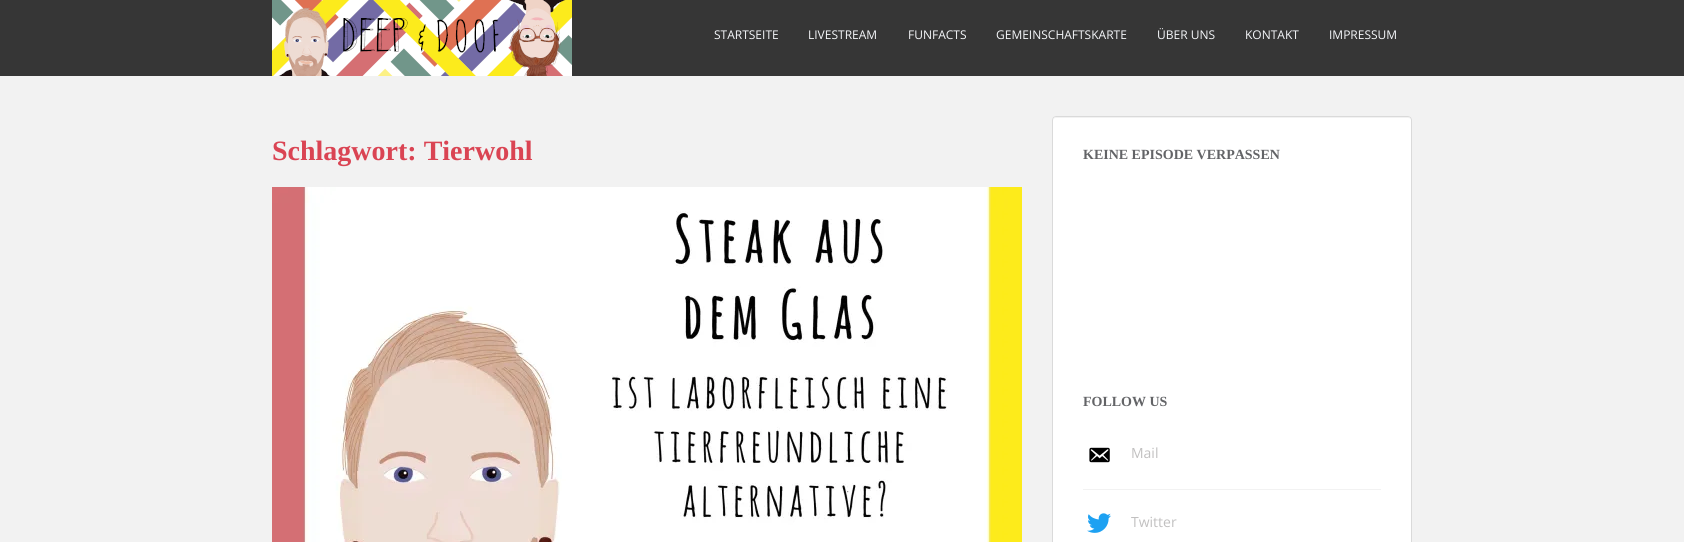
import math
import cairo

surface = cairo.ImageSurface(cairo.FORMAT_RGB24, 1684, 542)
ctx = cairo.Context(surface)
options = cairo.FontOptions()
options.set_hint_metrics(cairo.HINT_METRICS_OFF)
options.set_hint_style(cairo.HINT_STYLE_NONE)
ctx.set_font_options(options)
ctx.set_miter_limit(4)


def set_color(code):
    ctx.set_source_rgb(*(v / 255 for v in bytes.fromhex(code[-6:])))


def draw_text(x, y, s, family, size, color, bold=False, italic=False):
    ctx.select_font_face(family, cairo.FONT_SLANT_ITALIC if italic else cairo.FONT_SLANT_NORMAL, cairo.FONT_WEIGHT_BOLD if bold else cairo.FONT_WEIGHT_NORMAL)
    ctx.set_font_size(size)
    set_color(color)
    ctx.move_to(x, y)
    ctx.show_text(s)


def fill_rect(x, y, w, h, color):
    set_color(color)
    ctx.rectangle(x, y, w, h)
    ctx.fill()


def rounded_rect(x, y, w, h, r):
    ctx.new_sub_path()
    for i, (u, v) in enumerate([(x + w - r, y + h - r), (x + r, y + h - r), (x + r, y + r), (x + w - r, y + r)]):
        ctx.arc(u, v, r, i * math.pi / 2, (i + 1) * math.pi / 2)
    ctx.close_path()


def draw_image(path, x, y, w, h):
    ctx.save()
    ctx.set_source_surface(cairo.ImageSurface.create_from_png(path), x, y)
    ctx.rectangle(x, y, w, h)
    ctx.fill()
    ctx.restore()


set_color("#f2f2f2")
ctx.paint()
fill_rect(0, 0, 1684, 76, "#363636")
draw_image("assets/img1.png", 272, 0, 300, 76)
draw_text(714, 39, "STARTSEITE", "Open Sans", 12, "#f5f7fa")
draw_text(808, 39, "LIVESTREAM", "Open Sans", 12, "#f5f7fa")
draw_text(908, 39, "FUNFACTS", "Open Sans", 12, "#f5f7fa")
draw_text(996, 39, "GEMEINSCHAFTSKARTE", "Open Sans", 12, "#f5f7fa")
draw_text(1157, 39, "ÜBER UNS", "Open Sans", 12, "#f5f7fa")
draw_text(1245, 39, "KONTAKT", "Open Sans", 12, "#f5f7fa")
draw_text(1329, 39, "IMPRESSUM", "Open Sans", 12, "#f5f7fa")
draw_text(272, 160, "Schlagwort: Tierwohl", "Liberation Serif", 28, "#da4453", bold=True)
draw_image("assets/img2.png", 272, 187, 750, 355)
set_color("#ffffff")
rounded_rect(1052, 116, 360, 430, 4)
ctx.fill()
set_color("#f2f2f2")
ctx.new_path()
ctx.move_to(1056, 118)
ctx.line_to(1408, 118)
ctx.curve_to(1410, 118, 1411, 119, 1411, 121)
ctx.curve_to(1411, 119, 1410, 117, 1408, 117)
ctx.line_to(1056, 117)
ctx.line_to(1054, 118)
ctx.line_to(1053, 121)
ctx.curve_to(1053, 119, 1054, 118, 1056, 118)
ctx.close_path()
ctx.fill()
rounded_rect(1052.5, 116.5, 359, 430, 3.5)
set_color("#dadada")
ctx.set_line_width(1)
ctx.stroke()
draw_text(1083, 159, "KEINE EPISODE VERPASSEN", "Liberation Serif", 14, "#636467", bold=True)
draw_text(1083, 406, "FOLLOW US", "Liberation Serif", 14, "#636467", bold=True)
fill_rect(1083, 489, 298, 1, "#f2f2f2")
draw_image("assets/img3.png", 1089, 447, 21, 16)
draw_text(1131, 458, "Mail", "Open Sans", 14, "#c1c0c0")
draw_image("assets/img4.png", 1087, 513, 24, 20)
draw_text(1131, 527, "Twitter", "Open Sans", 14, "#c1c0c0")
surface.write_to_png("output.png")
